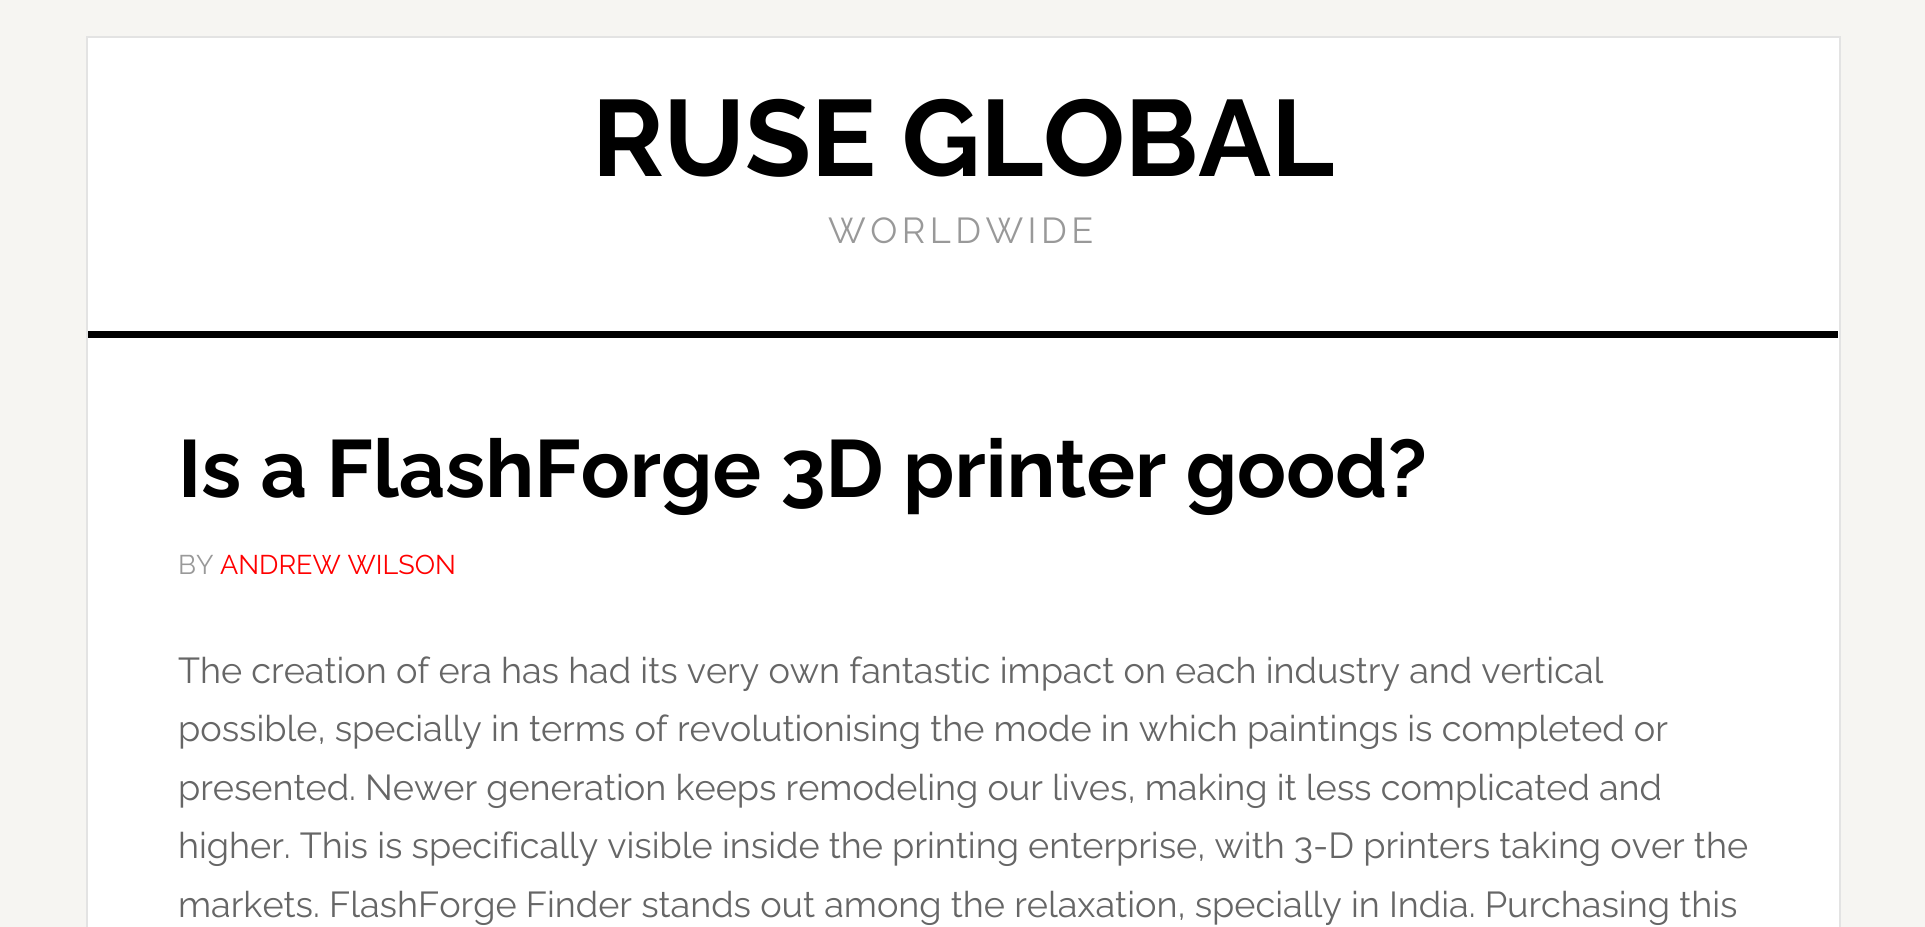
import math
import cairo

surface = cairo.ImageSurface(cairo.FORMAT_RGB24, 1925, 927)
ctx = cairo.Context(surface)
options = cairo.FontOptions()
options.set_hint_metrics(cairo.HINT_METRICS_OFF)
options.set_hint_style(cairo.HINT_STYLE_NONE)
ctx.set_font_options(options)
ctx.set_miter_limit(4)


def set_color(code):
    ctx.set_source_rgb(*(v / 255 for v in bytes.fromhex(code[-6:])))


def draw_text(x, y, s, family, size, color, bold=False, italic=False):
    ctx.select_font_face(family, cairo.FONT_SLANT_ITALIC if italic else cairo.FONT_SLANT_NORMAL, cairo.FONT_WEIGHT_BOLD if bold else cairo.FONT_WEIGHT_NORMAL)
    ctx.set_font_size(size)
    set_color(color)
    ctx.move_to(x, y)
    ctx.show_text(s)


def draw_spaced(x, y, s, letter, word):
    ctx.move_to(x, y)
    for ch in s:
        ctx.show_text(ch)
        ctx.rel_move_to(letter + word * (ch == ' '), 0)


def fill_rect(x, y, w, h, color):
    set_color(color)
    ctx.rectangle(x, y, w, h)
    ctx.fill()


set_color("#f6f5f2")
ctx.paint()
set_color("#ffffff")
ctx.rectangle(87, 37, 1753, 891)
ctx.fill_preserve()
set_color("#e3e3e3")
ctx.stroke()
fill_rect(88, 331, 1750, 7, "#000000")
draw_text(592, 176, "RUSE GLOBAL", "Raleway", 108, "#000000", bold=True)
ctx.select_font_face("Raleway")
ctx.set_font_size(36)
set_color("#999999")
draw_spaced(828, 243, "WORLDWIDE", 4.5, 0)
draw_text(178, 497, "Is a FlashForge 3D printer good?", "Raleway", 81, "#000000", bold=True)
draw_text(178, 574, "BY", "Raleway", 27, "#999999")
draw_text(220, 574, "ANDREW WILSON", "Raleway", 27, "#ff0000")
draw_text(178, 683, "The creation of era has had its very own fantastic impact on each industry and vertical", "Raleway", 36, "#666666")
draw_text(178, 741, "possible, specially in terms of revolutionising the mode in which paintings is completed or", "Raleway", 36, "#666666")
draw_text(178, 800, "presented. Newer generation keeps remodeling our lives, making it less complicated and", "Raleway", 36, "#666666")
draw_text(178, 858, "higher. This is specifically visible inside the printing enterprise, with 3-D printers taking over the", "Raleway", 36, "#666666")
draw_text(178, 917, "markets. FlashForge Finder stands out among the relaxation, specially in India. Purchasing this", "Raleway", 36, "#666666")
surface.write_to_png("output.png")
